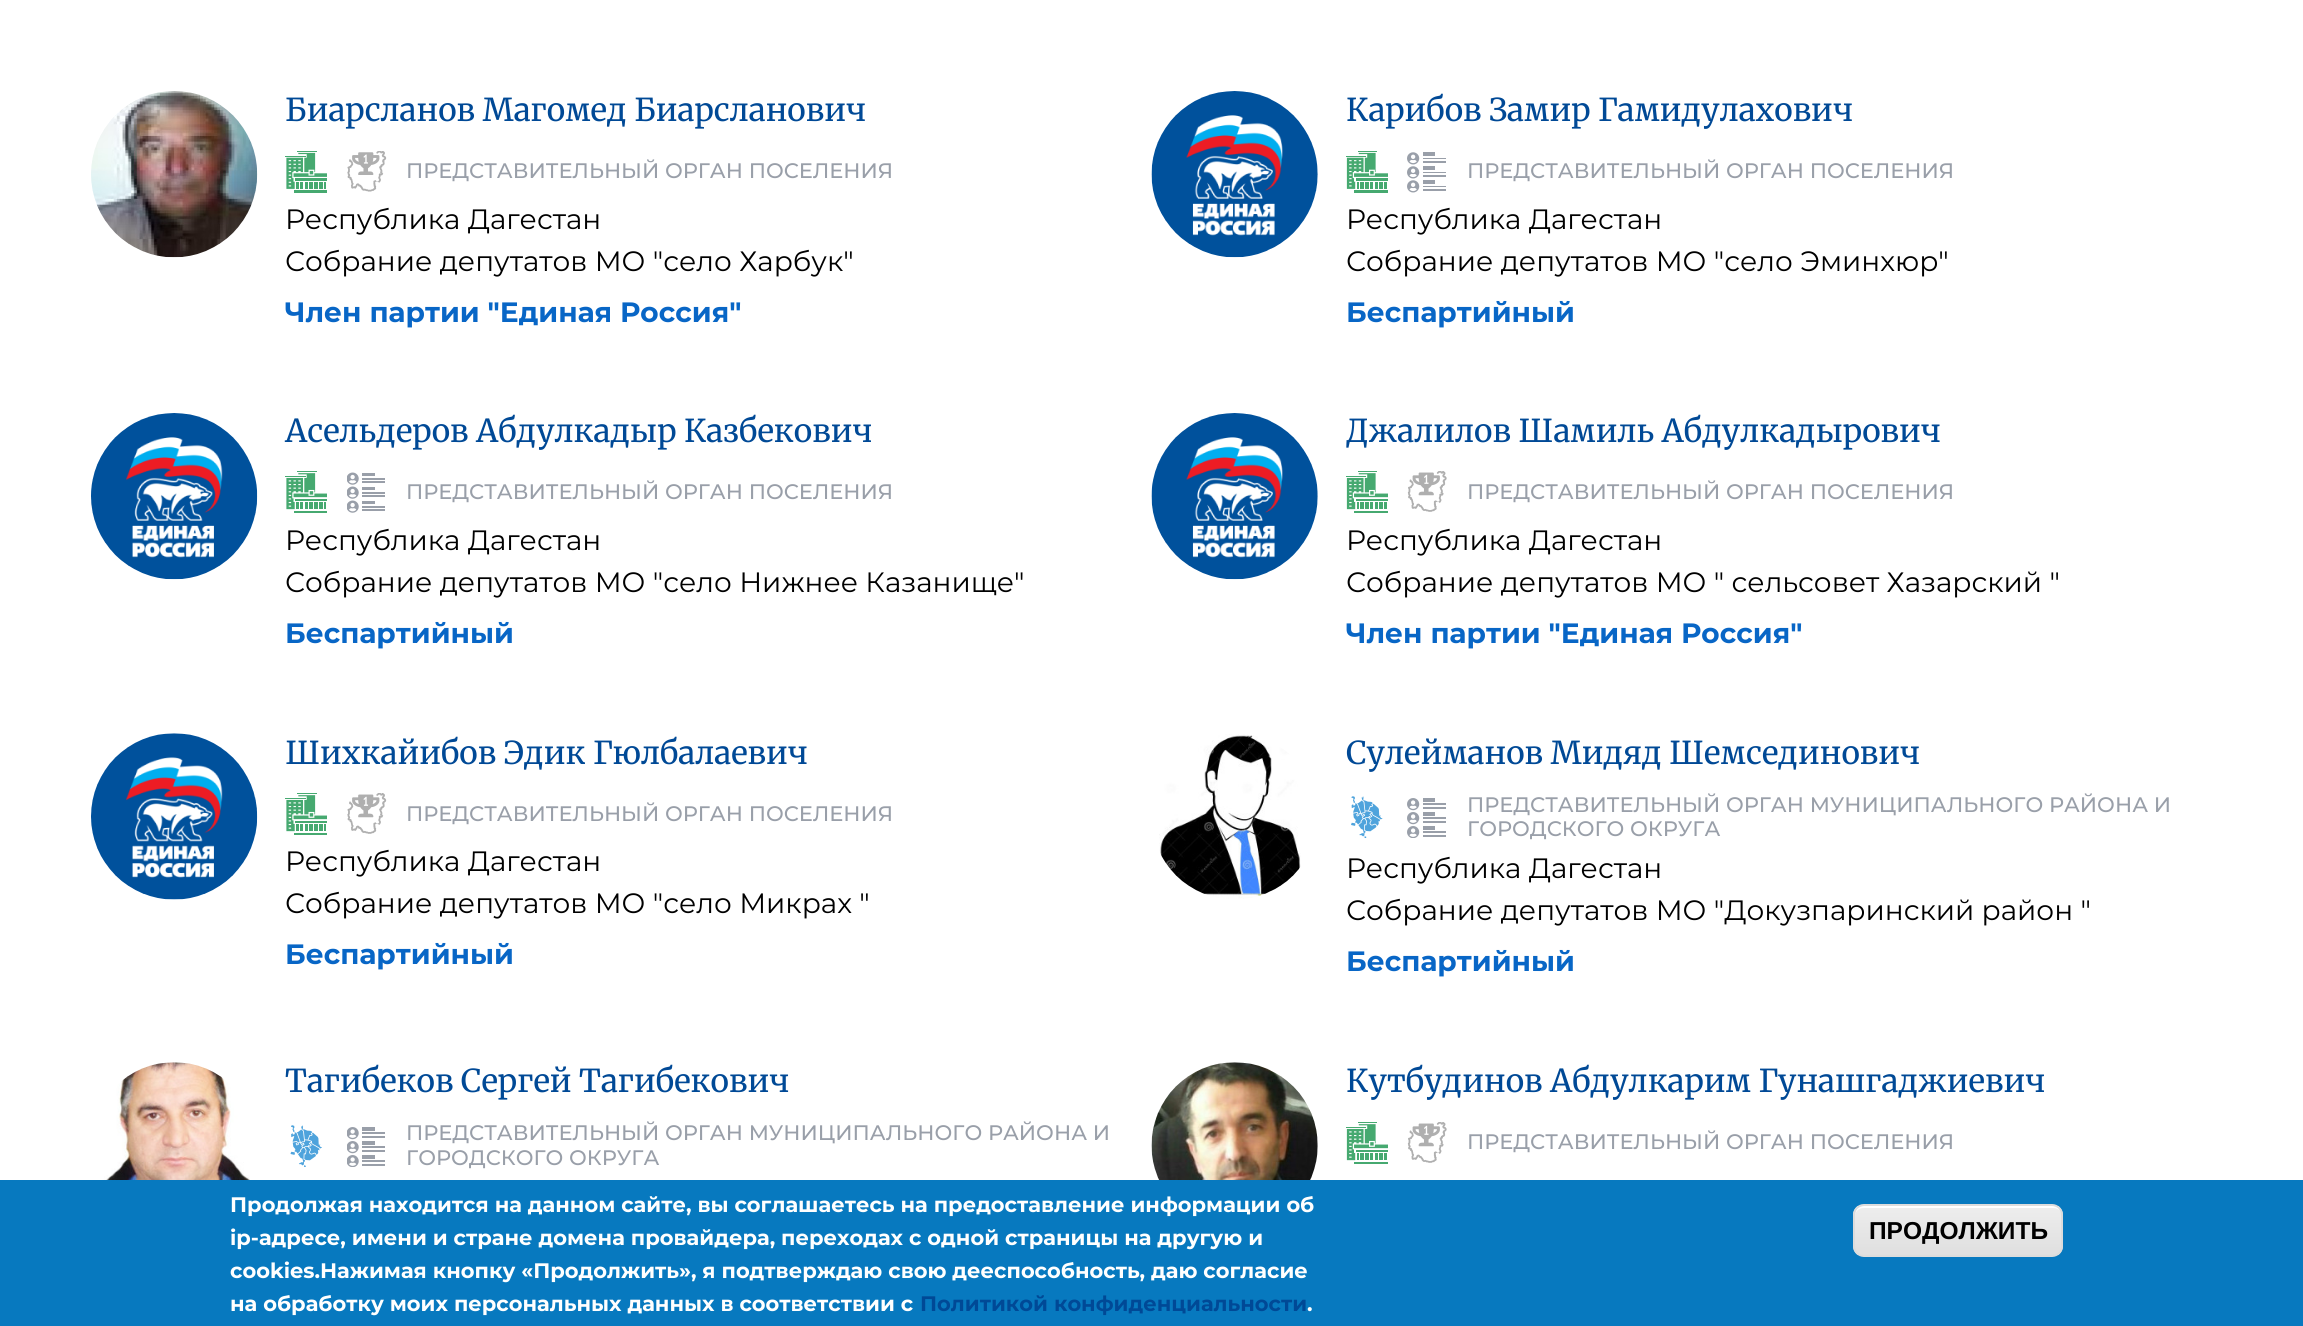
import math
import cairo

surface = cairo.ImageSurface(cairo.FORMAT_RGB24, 2303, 1326)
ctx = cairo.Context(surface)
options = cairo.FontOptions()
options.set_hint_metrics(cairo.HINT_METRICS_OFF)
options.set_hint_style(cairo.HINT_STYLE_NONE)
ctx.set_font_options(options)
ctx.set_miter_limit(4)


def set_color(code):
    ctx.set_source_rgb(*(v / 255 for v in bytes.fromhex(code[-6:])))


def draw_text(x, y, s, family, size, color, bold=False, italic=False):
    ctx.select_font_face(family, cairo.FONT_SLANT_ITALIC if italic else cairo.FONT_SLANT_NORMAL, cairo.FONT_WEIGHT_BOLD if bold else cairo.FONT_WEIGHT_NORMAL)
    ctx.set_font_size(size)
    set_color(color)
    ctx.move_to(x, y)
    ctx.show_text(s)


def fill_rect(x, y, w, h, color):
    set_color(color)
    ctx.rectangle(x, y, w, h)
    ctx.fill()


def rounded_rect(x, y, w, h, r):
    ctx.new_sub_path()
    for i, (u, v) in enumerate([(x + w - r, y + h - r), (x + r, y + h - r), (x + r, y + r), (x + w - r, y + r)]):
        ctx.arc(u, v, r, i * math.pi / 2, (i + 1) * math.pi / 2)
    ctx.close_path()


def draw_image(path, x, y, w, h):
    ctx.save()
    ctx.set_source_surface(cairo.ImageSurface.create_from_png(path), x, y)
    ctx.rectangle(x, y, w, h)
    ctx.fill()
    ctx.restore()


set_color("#ffffff")
ctx.paint()
draw_image("assets/img1.png", 91, 91, 167, 167)
draw_text(285, 121, "Биарсланов Магомед Биарсланович", "Merriweather", 31.5, "#004996")
draw_image("assets/img2.png", 285, 151, 42, 42)
draw_image("assets/img3.png", 347, 151, 40, 41)
draw_text(406, 178, "ПРЕДСТАВИТЕЛЬНЫЙ ОРГАН ПОСЕЛЕНИЯ", "Montserrat Medium", 21, "#999fa9")
draw_text(285, 229, "Республика Дагестан", "Montserrat", 28, "#000000")
draw_text(285, 271, "Собрание депутатов МО \"село Харбук\"", "Montserrat", 28, "#000000")
draw_text(285, 322, "Член партии \"Единая Россия\"", "Montserrat", 28, "#0866c6", bold=True)
draw_image("assets/img4.png", 1151, 91, 167, 167)
draw_text(1346, 121, "Карибов Замир Гамидулахович", "Merriweather", 31.5, "#004996")
draw_image("assets/img5.png", 1346, 151, 42, 42)
draw_image("assets/img6.png", 1407, 152, 39, 41)
draw_text(1467, 178, "ПРЕДСТАВИТЕЛЬНЫЙ ОРГАН ПОСЕЛЕНИЯ", "Montserrat Medium", 21, "#999fa9")
draw_text(1346, 229, "Республика Дагестан", "Montserrat", 28, "#000000")
draw_text(1346, 271, "Собрание депутатов МО \"село Эминхюр\"", "Montserrat", 28, "#000000")
draw_text(1346, 322, "Беспартийный", "Montserrat", 28, "#0866c6", bold=True)
draw_image("assets/img7.png", 91, 413, 167, 167)
draw_text(285, 442, "Асельдеров Абдулкадыр Казбекович", "Merriweather", 31.5, "#004996")
draw_image("assets/img8.png", 285, 471, 42, 42)
draw_image("assets/img9.png", 347, 472, 38, 41)
draw_text(406, 499, "ПРЕДСТАВИТЕЛЬНЫЙ ОРГАН ПОСЕЛЕНИЯ", "Montserrat Medium", 21, "#999fa9")
draw_text(285, 550, "Республика Дагестан", "Montserrat", 28, "#000000")
draw_text(285, 592, "Собрание депутатов МО \"село Нижнее Казанище\"", "Montserrat", 28, "#000000")
draw_text(285, 643, "Беспартийный", "Montserrat", 28, "#0866c6", bold=True)
draw_image("assets/img10.png", 1151, 413, 167, 167)
draw_text(1346, 442, "Джалилов Шамиль Абдулкадырович", "Merriweather", 31.5, "#004996")
draw_image("assets/img11.png", 1346, 471, 42, 42)
draw_image("assets/img12.png", 1407, 471, 40, 41)
draw_text(1467, 499, "ПРЕДСТАВИТЕЛЬНЫЙ ОРГАН ПОСЕЛЕНИЯ", "Montserrat Medium", 21, "#999fa9")
draw_text(1346, 550, "Республика Дагестан", "Montserrat", 28, "#000000")
draw_text(1346, 592, "Собрание депутатов МО \" сельсовет Хазарский \"", "Montserrat", 28, "#000000")
draw_text(1346, 643, "Член партии \"Единая Россия\"", "Montserrat", 28, "#0866c6", bold=True)
draw_image("assets/img13.png", 91, 733, 167, 167)
draw_text(285, 764, "Шихкайибов Эдик Гюлбалаевич", "Merriweather", 31.5, "#004996")
draw_image("assets/img8.png", 285, 793, 42, 42)
draw_image("assets/img14.png", 347, 793, 40, 41)
draw_text(406, 821, "ПРЕДСТАВИТЕЛЬНЫЙ ОРГАН ПОСЕЛЕНИЯ", "Montserrat Medium", 21, "#999fa9")
draw_text(285, 871, "Республика Дагестан", "Montserrat", 28, "#000000")
draw_text(285, 913, "Собрание депутатов МО \"село Микрах \"", "Montserrat", 28, "#000000")
draw_text(285, 964, "Беспартийный", "Montserrat", 28, "#0866c6", bold=True)
draw_image("assets/img15.png", 1159, 734, 142, 165)
draw_text(1346, 764, "Сулейманов Мидяд Шемсединович", "Merriweather", 31.5, "#004996")
draw_image("assets/img16.png", 1351, 796, 32, 42)
draw_image("assets/img17.png", 1407, 798, 39, 40)
draw_text(1467, 812, "ПРЕДСТАВИТЕЛЬНЫЙ ОРГАН МУНИЦИПАЛЬНОГО РАЙОНА И", "Montserrat Medium", 21, "#999fa9")
draw_text(1467, 836, "ГОРОДСКОГО ОКРУГА", "Montserrat Medium", 21, "#999fa9")
draw_text(1346, 878, "Республика Дагестан", "Montserrat", 28, "#000000")
draw_text(1346, 920, "Собрание депутатов МО \"Докузпаринский район \"", "Montserrat", 28, "#000000")
draw_text(1346, 971, "Беспартийный", "Montserrat", 28, "#0866c6", bold=True)
draw_image("assets/img18.png", 101, 1062, 149, 118)
draw_text(285, 1092, "Тагибеков Сергей Тагибекович", "Merriweather", 31.5, "#004996")
draw_image("assets/img19.png", 290, 1125, 32, 42)
draw_image("assets/img20.png", 347, 1127, 38, 40)
draw_text(406, 1140, "ПРЕДСТАВИТЕЛЬНЫЙ ОРГАН МУНИЦИПАЛЬНОГО РАЙОНА И", "Montserrat Medium", 21, "#999fa9")
draw_text(406, 1165, "ГОРОДСКОГО ОКРУГА", "Montserrat Medium", 21, "#999fa9")
draw_image("assets/img21.png", 1151, 1062, 167, 118)
draw_text(1346, 1092, "Кутбудинов Абдулкарим Гунашгаджиевич", "Merriweather", 31.5, "#004996")
draw_image("assets/img11.png", 1346, 1122, 42, 42)
draw_image("assets/img12.png", 1407, 1122, 40, 41)
draw_text(1467, 1149, "ПРЕДСТАВИТЕЛЬНЫЙ ОРГАН ПОСЕЛЕНИЯ", "Montserrat Medium", 21, "#999fa9")
fill_rect(0, 1180, 2303, 146, "#0779bf")
draw_text(230, 1212, "Продолжая находится на данном сайте, вы соглашаетесь на предоставление информации об", "Montserrat", 21, "#ffffff", bold=True)
draw_text(230, 1245, "ip-адресе, имени и стране домена провайдера, переходах с одной страницы на другую и", "Montserrat", 21, "#ffffff", bold=True)
draw_text(230, 1278, "cookies.Нажимая кнопку «Продолжить», я подтверждаю свою дееспособность, даю согласие", "Montserrat", 21, "#ffffff", bold=True)
draw_text(230, 1311, "на обработку моих персональных данных в соответствии с", "Montserrat", 21, "#ffffff", bold=True)
draw_text(920, 1311, "Политикой конфиденциальности", "Montserrat", 21, "#004996", bold=True)
draw_text(1307, 1311, ".", "Montserrat", 21, "#ffffff", bold=True)
ctx.save()
rounded_rect(1853, 1204, 210, 53, 11)
ctx.clip()
gradient = cairo.LinearGradient(1958, 1206, 1958, 1255)
gradient.add_color_stop_rgba(0.05, 0.929, 0.929, 0.929, 1)
gradient.add_color_stop_rgba(1, 0.875, 0.875, 0.875, 1)
ctx.set_source(gradient)
ctx.rectangle(1853, 1206, 210, 49)
ctx.fill()
ctx.restore()
ctx.new_path()
ctx.move_to(1864, 1208)
ctx.line_to(2053, 1208)
ctx.curve_to(2058, 1208, 2062, 1211, 2062, 1216)
ctx.line_to(2062, 1215)
ctx.curve_to(2062, 1210, 2058, 1206, 2053, 1206)
ctx.line_to(1864, 1206)
ctx.curve_to(1859, 1206, 1855, 1210, 1855, 1215)
ctx.line_to(1855, 1216)
ctx.curve_to(1855, 1211, 1859, 1208, 1864, 1208)
ctx.close_path()
ctx.fill()
rounded_rect(1854, 1205, 208, 51, 10)
set_color("#dcdcdc")
ctx.stroke()
draw_text(1869, 1239, "ПРОДОЛЖИТЬ", "Liberation Sans", 24.5, "#000000", bold=True)
surface.write_to_png("output.png")
